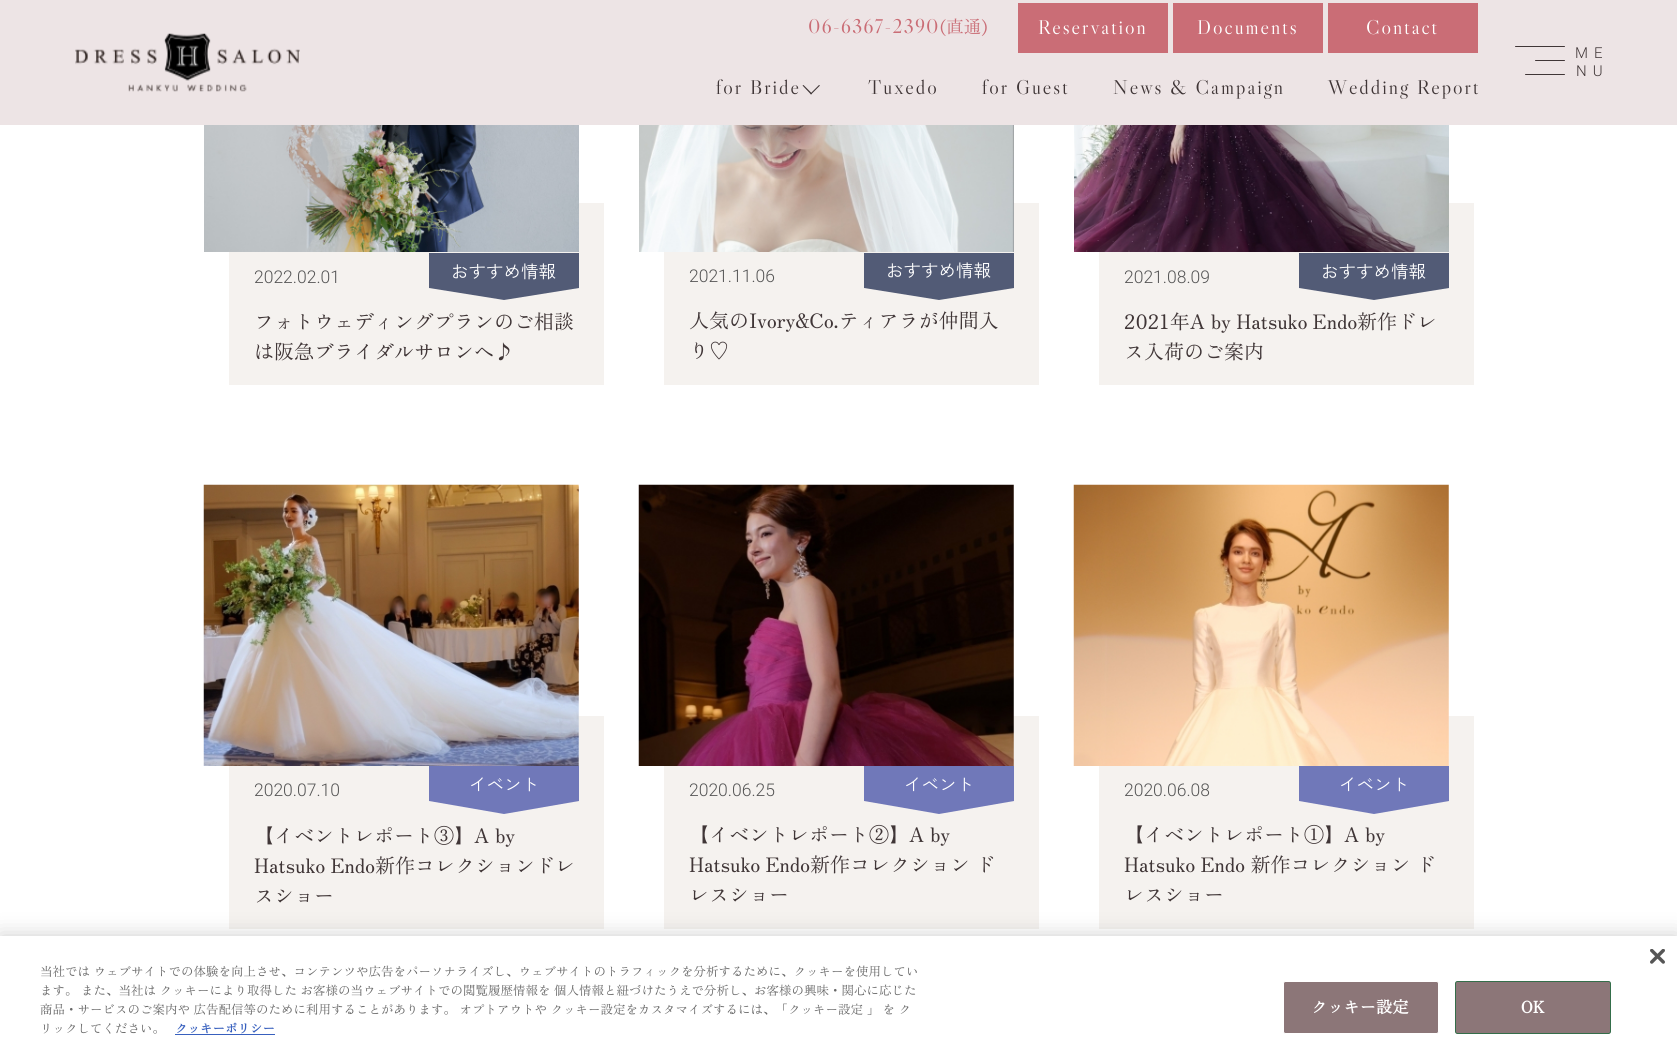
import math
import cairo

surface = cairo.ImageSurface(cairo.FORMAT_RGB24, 1677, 1061)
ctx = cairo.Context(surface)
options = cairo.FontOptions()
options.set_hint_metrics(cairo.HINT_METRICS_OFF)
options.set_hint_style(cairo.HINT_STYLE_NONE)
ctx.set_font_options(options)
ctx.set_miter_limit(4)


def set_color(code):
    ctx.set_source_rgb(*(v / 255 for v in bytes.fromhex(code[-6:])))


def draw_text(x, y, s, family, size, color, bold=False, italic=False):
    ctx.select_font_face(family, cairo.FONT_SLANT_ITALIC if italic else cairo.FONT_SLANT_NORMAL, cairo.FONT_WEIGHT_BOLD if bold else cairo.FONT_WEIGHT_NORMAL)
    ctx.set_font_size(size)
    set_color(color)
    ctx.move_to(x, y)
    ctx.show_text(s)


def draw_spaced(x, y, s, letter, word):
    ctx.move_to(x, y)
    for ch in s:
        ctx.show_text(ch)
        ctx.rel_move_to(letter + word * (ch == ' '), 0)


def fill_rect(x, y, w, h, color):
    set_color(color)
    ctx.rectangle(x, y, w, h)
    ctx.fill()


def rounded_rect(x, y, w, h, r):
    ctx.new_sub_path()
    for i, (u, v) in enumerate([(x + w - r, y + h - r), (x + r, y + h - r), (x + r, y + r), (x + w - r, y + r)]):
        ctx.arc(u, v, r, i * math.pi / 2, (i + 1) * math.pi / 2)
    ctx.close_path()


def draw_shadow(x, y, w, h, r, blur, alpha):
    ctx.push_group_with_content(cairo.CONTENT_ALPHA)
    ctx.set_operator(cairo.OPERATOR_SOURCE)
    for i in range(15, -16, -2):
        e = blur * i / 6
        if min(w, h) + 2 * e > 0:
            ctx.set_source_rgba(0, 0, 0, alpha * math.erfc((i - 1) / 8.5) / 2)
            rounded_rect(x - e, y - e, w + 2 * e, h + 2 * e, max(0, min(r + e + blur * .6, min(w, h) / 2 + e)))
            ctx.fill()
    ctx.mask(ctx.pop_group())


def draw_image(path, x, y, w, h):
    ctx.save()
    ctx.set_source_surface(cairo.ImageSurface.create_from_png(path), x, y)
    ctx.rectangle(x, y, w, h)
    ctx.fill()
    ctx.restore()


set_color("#ffffff")
ctx.paint()
fill_rect(0, 0, 1677, 125, "#ede4e5")
draw_image("assets/img1.png", 75, 33, 225, 59)
ctx.select_font_face("Libre Caslon Display")
ctx.set_font_size(20)
set_color("#ca6d76")
draw_spaced(808, 33, "06-6367-2390", 1, 0)
draw_text(940, 33, "(直通)", "Zen Old Mincho", 17.5, "#ca6d76")
fill_rect(1018, 3, 150, 50, "#ca6d76")
ctx.select_font_face("Libre Caslon Display")
ctx.set_font_size(20)
set_color("#ffffff")
draw_spaced(1038, 34, "Reservation", 2, 0)
fill_rect(1173, 3, 150, 50, "#ca6d76")
set_color("#ffffff")
draw_spaced(1197, 34, "Documents", 2, 0)
fill_rect(1328, 3, 150, 50, "#ca6d76")
set_color("#ffffff")
draw_spaced(1366, 34, "Contact", 2, 0)
set_color("#403637")
draw_spaced(716, 94, "for Bride", 2, 0)
ctx.new_path()
ctx.move_to(820, 85.5)
ctx.line_to(811, 94.5)
ctx.line_to(810.5, 93.5)
ctx.line_to(819, 85)
ctx.close_path()
ctx.fill()
ctx.new_path()
ctx.move_to(812, 93.5)
ctx.line_to(811, 94.5)
ctx.line_to(802.5, 85.5)
ctx.line_to(803.5, 85)
ctx.close_path()
ctx.fill()
draw_spaced(868, 94, "Tuxedo", 2, 0)
draw_spaced(982, 94, "for Guest", 2, 0)
draw_spaced(1113, 94, "News & Campaign", 2, 0)
draw_spaced(1328, 94, "Wedding Report", 2, 0)
rounded_rect(1515, 46, 50, 1, 0.5)
ctx.fill()
rounded_rect(1535, 60, 30, 1, 0.5)
ctx.fill()
rounded_rect(1525, 74, 40, 1, 0.5)
ctx.fill()
ctx.select_font_face("Roboto Light")
ctx.set_font_size(15)
draw_spaced(1575, 58, "ME", 6, 0)
draw_spaced(1576, 76, "NU", 6, 0)
fill_rect(229, 203, 375, 182, "#f5f2ef")
draw_image("assets/img2.png", 204, 125, 375, 127)
draw_text(254, 283, "2022.02.01", "Roboto Light", 17.5, "#555555")
fill_rect(429, 253, 150, 35, "#525b76")
draw_text(451, 278, "おすすめ情報", "Zen Kaku Gothic New", 17.5, "#ffffff")
set_color("#525b76")
ctx.new_path()
ctx.move_to(429, 288)
ctx.line_to(579, 288)
ctx.line_to(504, 300)
ctx.close_path()
ctx.fill()
draw_text(254, 329, "フォトウェディングプランのご相談", "Zen Old Mincho", 20, "#403637")
draw_text(254, 359, "は阪急ブライダルサロンへ♪", "Zen Old Mincho", 20, "#403637")
fill_rect(664, 203, 375, 182, "#f5f2ef")
draw_image("assets/img3.png", 639, 125, 375, 127)
draw_text(689, 282, "2021.11.06", "Roboto Light", 17.5, "#555555")
fill_rect(864, 253, 150, 35, "#525b76")
draw_text(886, 277, "おすすめ情報", "Zen Kaku Gothic New", 17.5, "#ffffff")
set_color("#525b76")
ctx.new_path()
ctx.move_to(864, 288)
ctx.line_to(1014, 288)
ctx.line_to(939, 300)
ctx.close_path()
ctx.fill()
draw_text(689, 328, "人気のIvory&Co.ティアラが仲間入", "Zen Old Mincho", 20, "#403637")
draw_text(689, 358, "り♡", "Zen Old Mincho", 20, "#403637")
fill_rect(1099, 203, 375, 182, "#f5f2ef")
draw_image("assets/img4.png", 1074, 125, 375, 127)
draw_text(1124, 283, "2021.08.09", "Roboto Light", 17.5, "#555555")
fill_rect(1299, 253, 150, 35, "#525b76")
draw_text(1321, 278, "おすすめ情報", "Zen Kaku Gothic New", 17.5, "#ffffff")
set_color("#525b76")
ctx.new_path()
ctx.move_to(1299, 288)
ctx.line_to(1449, 288)
ctx.line_to(1374, 300)
ctx.close_path()
ctx.fill()
draw_text(1124, 329, "2021年A by Hatsuko Endo新作ドレ", "Zen Old Mincho", 20, "#403637")
draw_text(1124, 359, "ス入荷のご案内", "Zen Old Mincho", 20, "#403637")
fill_rect(229, 716, 375, 213, "#f5f2ef")
draw_image("assets/img5.png", 203, 484, 376, 282)
draw_text(254, 796, "2020.07.10", "Roboto Light", 17.5, "#555555")
fill_rect(429, 766, 150, 35, "#7078b9")
draw_text(469, 791, "イベント", "Zen Kaku Gothic New", 17.5, "#ffffff")
set_color("#7078b9")
ctx.new_path()
ctx.move_to(429, 801)
ctx.line_to(579, 801)
ctx.line_to(504, 814)
ctx.close_path()
ctx.fill()
draw_text(254, 843, "【イベントレポート③】A by", "Zen Old Mincho", 20, "#403637")
draw_text(254, 873, "Hatsuko Endo新作コレクションドレ", "Zen Old Mincho", 20, "#403637")
draw_text(254, 903, "スショー", "Zen Old Mincho", 20, "#403637")
fill_rect(664, 716, 375, 213, "#f5f2ef")
draw_image("assets/img6.png", 638, 484, 376, 282)
draw_text(689, 796, "2020.06.25", "Roboto Light", 17.5, "#555555")
fill_rect(864, 766, 150, 35, "#7078b9")
draw_text(904, 791, "イベント", "Zen Kaku Gothic New", 17.5, "#ffffff")
set_color("#7078b9")
ctx.new_path()
ctx.move_to(864, 801)
ctx.line_to(1014, 801)
ctx.line_to(939, 814)
ctx.close_path()
ctx.fill()
draw_text(689, 842, "【イベントレポート②】A by", "Zen Old Mincho", 20, "#403637")
draw_text(689, 872, "Hatsuko Endo新作コレクション ド", "Zen Old Mincho", 20, "#403637")
draw_text(689, 902, "レスショー", "Zen Old Mincho", 20, "#403637")
fill_rect(1099, 716, 375, 213, "#f5f2ef")
draw_image("assets/img7.png", 1073, 484, 376, 282)
draw_text(1124, 796, "2020.06.08", "Roboto Light", 17.5, "#555555")
fill_rect(1299, 766, 150, 35, "#7078b9")
draw_text(1339, 791, "イベント", "Zen Kaku Gothic New", 17.5, "#ffffff")
set_color("#7078b9")
ctx.new_path()
ctx.move_to(1299, 801)
ctx.line_to(1449, 801)
ctx.line_to(1374, 814)
ctx.close_path()
ctx.fill()
draw_text(1124, 842, "【イベントレポート①】A by", "Zen Old Mincho", 20, "#403637")
draw_text(1124, 872, "Hatsuko Endo 新作コレクション ド", "Zen Old Mincho", 20, "#403637")
draw_text(1124, 902, "レスショー", "Zen Old Mincho", 20, "#403637")
set_color("#000000")
draw_shadow(0, 936, 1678, 125, 0, 11, 0.2)
fill_rect(0, 936, 1677, 125, "#ffffff")
draw_image("assets/img8.png", 1650, 949, 15, 15)
draw_text(40, 976, "当社では ウェブサイトでの体験を向上させ、コンテンツや広告をパーソナライズし、ウェブサイトのトラフィックを分析するために、クッキーを使用してい", "Zen Old Mincho", 12.5, "#696969")
draw_text(40, 995, "ます。 また、当社は クッキーにより取得した お客様の当ウェブサイトでの閲覧履歴情報を 個人情報と紐づけたうえで分析し、お客様の興味・関心に応じた", "Zen Old Mincho", 12.5, "#696969")
draw_text(40, 1014, "商品・サービスのご案内や 広告配信等のために利用することがあります。 オプトアウトや クッキー設定をカスタマイズするには、「クッキー設定 」 を ク", "Zen Old Mincho", 12.5, "#696969")
draw_text(40, 1033, "リックしてください。", "Zen Old Mincho", 12.5, "#696969")
draw_text(175, 1033, "クッキーポリシー", "Zen Old Mincho", 12.5, "#3860be", bold=True)
fill_rect(175, 1034, 100, 1, "#3860be")
set_color("#8c7678")
rounded_rect(1283.5, 981.5, 155, 52, 2)
ctx.fill_preserve()
set_color("#ffffff")
ctx.set_line_width(1)
ctx.stroke()
draw_text(1311, 1013, "クッキー設定", "Zen Old Mincho", 16.25, "#ffffff", bold=True)
set_color("#8c7678")
rounded_rect(1455.5, 981.5, 155, 52, 2)
ctx.fill_preserve()
set_color("#346e4a")
ctx.stroke()
draw_text(1521, 1013, "OK", "Zen Old Mincho", 16.25, "#ffffff", bold=True)
surface.write_to_png("output.png")
